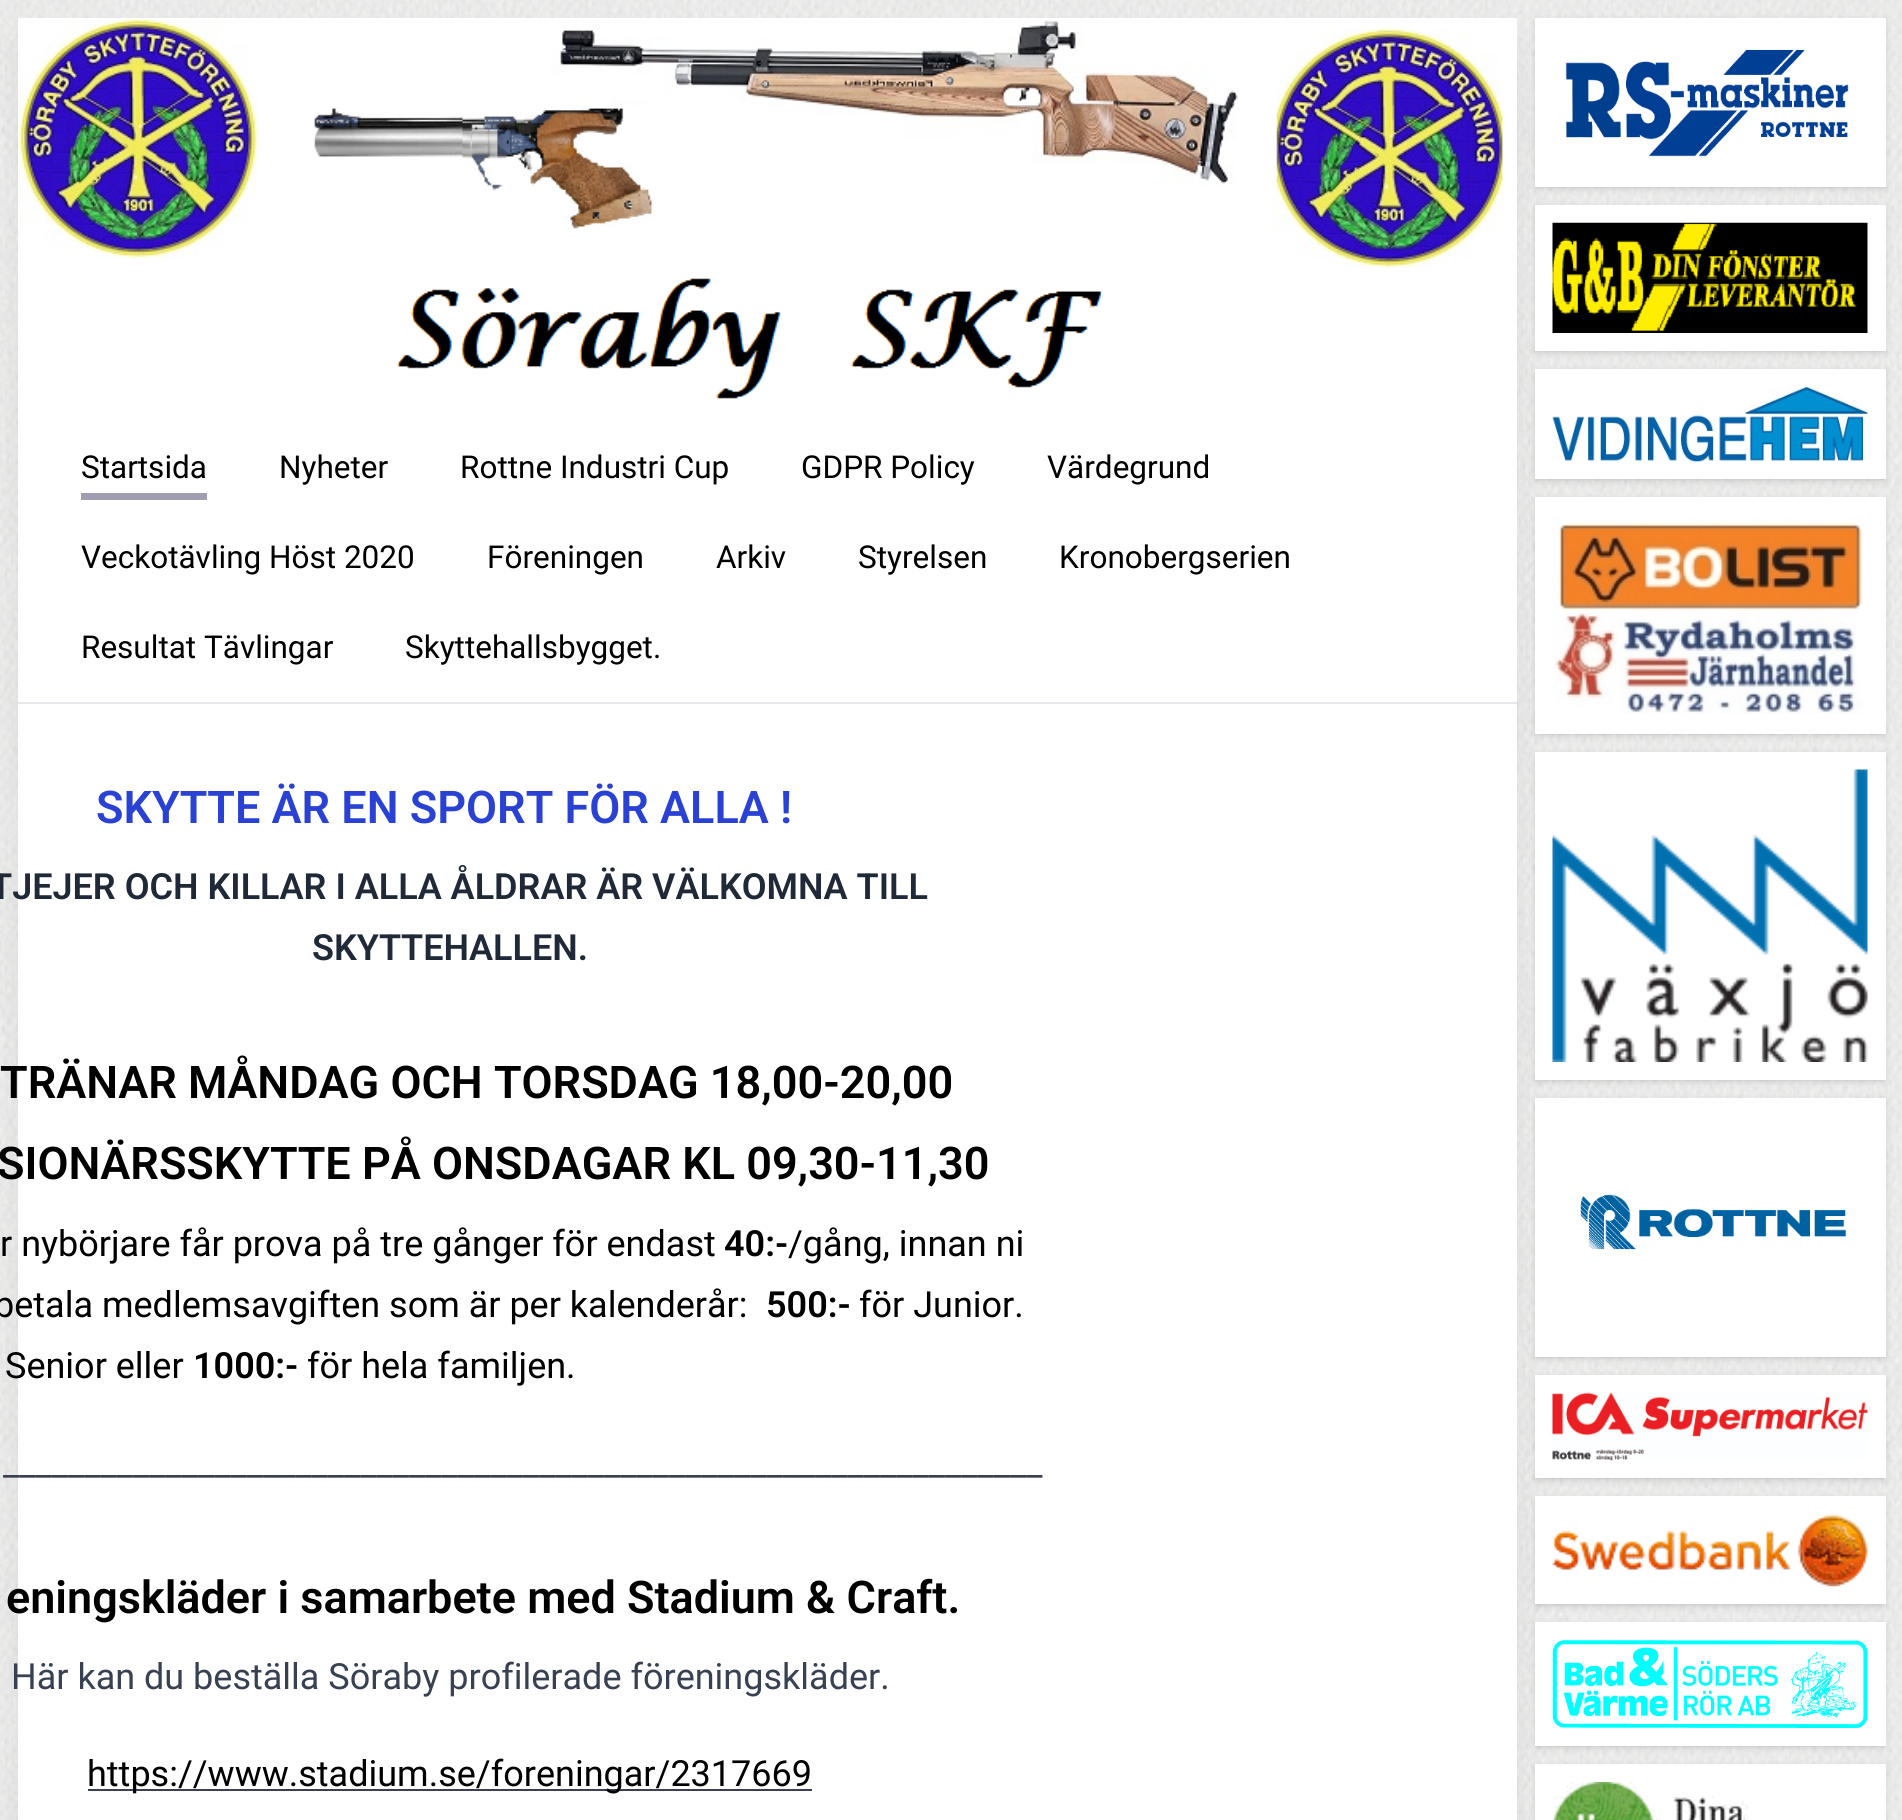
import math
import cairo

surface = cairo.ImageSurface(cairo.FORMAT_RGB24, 1902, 1820)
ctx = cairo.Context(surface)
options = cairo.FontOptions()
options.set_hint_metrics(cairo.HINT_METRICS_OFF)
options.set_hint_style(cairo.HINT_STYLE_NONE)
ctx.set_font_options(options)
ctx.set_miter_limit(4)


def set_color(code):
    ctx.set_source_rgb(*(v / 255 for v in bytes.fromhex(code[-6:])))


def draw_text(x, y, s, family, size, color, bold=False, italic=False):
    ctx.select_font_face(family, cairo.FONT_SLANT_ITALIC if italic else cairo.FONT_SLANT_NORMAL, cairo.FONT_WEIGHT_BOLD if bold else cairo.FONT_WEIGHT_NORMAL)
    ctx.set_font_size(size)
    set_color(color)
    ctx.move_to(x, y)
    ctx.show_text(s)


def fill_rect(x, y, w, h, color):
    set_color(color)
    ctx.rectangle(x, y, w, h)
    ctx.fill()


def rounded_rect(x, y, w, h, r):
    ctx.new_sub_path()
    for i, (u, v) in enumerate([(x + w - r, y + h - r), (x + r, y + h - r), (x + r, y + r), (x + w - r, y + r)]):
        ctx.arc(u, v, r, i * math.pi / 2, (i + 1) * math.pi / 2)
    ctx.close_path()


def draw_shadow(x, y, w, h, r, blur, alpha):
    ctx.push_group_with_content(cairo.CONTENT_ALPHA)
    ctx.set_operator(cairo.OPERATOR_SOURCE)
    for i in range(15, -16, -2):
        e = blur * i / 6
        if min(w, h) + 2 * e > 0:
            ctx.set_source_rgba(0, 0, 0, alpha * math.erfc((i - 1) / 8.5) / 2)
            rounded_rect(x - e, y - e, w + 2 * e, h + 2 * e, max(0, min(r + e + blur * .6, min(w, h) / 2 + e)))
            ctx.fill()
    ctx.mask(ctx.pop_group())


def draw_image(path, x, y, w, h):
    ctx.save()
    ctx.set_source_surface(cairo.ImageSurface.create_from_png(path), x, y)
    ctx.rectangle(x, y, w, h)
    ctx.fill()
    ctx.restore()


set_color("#ffffff")
ctx.paint()
draw_image("assets/img1.png", 0, 0, 1902, 1820)
set_color("#000000")
draw_shadow(25, 47, 1485, 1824, 0, 17, 0.1)
fill_rect(18, 18, 1499, 1802, "#ffffff")
draw_image("assets/img2.png", 19, 19, 1484, 380)
fill_rect(18, 702, 1499, 2, "#e5e7eb")
fill_rect(81, 493, 126, 7, "#a29eb2")
draw_text(81, 478, "Startsida", "Roboto", 31.5, "#000000")
draw_text(279, 478, "Nyheter", "Roboto", 31.5, "#000000")
draw_text(460, 478, "Rottne Industri Cup", "Roboto", 31.5, "#000000")
draw_text(801, 478, "GDPR Policy", "Roboto", 31.5, "#000000")
draw_text(1047, 478, "Värdegrund", "Roboto", 31.5, "#000000")
draw_text(81, 568, "Veckotävling Höst 2020", "Roboto", 31.5, "#000000")
draw_text(487, 568, "Föreningen", "Roboto", 31.5, "#000000")
draw_text(716, 568, "Arkiv", "Roboto", 31.5, "#000000")
draw_text(858, 568, "Styrelsen", "Roboto", 31.5, "#000000")
draw_text(1059, 568, "Kronobergserien", "Roboto", 31.5, "#000000")
draw_text(81, 658, "Resultat Tävlingar", "Roboto", 31.5, "#000000")
draw_text(405, 658, "Skyttehallsbygget.", "Roboto", 31.5, "#000000")
draw_text(96, 823, "SKYTTE ÄR EN SPORT FÖR ALLA !", "Roboto SemiBold", 45, "#2a42d4")
draw_text(-10, 899, "TJEJER OCH KILLAR I ALLA ÅLDRAR ÄR VÄLKOMNA TILL", "Roboto SemiBold", 36, "#1f2937")
draw_text(312, 960, "SKYTTEHALLEN.", "Roboto SemiBold", 36, "#1f2937")
draw_text(0, 1098, "TRÄNAR MÅNDAG OCH TORSDAG 18,00-20,00", "Roboto SemiBold", 45, "#000000")
draw_text(-3, 1179, "SIONÄRSSKYTTE PÅ ONSDAGAR KL 09,30-11,30", "Roboto SemiBold", 45, "#000000")
draw_text(0, 1256, "r nybörjare får prova på tre gånger för endast", "Roboto", 36, "#000000")
draw_text(724, 1256, "40:-", "Roboto SemiBold", 36, "#000000")
draw_text(788, 1256, "/gång, innan ni", "Roboto", 36, "#000000")
draw_text(-6, 1317, "betala medlemsavgiften som är per kalenderår:", "Roboto", 36, "#000000")
draw_text(766, 1317, "500:-", "Roboto SemiBold", 36, "#000000")
draw_text(859, 1317, "för Junior.", "Roboto", 36, "#000000")
draw_text(5, 1378, "Senior eller", "Roboto", 36, "#000000")
draw_text(193, 1378, "1000:-", "Roboto SemiBold", 36, "#000000")
draw_text(307, 1378, "för hela familjen.", "Roboto", 36, "#000000")
draw_text(3, 1475, "________________________________________________________________", "Roboto", 36, "#374151")
draw_text(6, 1613, "eningskläder i samarbete med Stadium & Craft.", "Roboto SemiBold", 45, "#000000")
draw_text(11, 1689, "Här kan du beställa Söraby profilerade föreningskläder.", "Roboto", 36, "#374151")
fill_rect(88, 1789, 724, 2, "#374151")
draw_text(87, 1786, "https://www.stadium.se/foreningar/2317669", "Roboto", 36, "#000000")
set_color("#000000")
draw_shadow(1537, 23, 346, 164, 0, 2, 0.1)
draw_shadow(1535, 20, 351, 169, 0, 3.5, 0.1)
fill_rect(1535, 18, 351, 169, "#ffffff")
draw_image("assets/img3.png", 1565, 49, 284, 108)
set_color("#000000")
draw_shadow(1537, 209, 346, 142, 0, 2, 0.1)
draw_shadow(1535, 207, 351, 146, 0, 3.5, 0.1)
fill_rect(1535, 205, 351, 146, "#ffffff")
draw_image("assets/img4.png", 1552, 222, 316, 111)
set_color("#000000")
draw_shadow(1537, 374, 346, 105, 0, 2, 0.1)
draw_shadow(1535, 371, 351, 111, 0, 3.5, 0.1)
fill_rect(1535, 369, 351, 110, "#ffffff")
draw_image("assets/img5.png", 1552, 387, 316, 75)
set_color("#000000")
draw_shadow(1537, 502, 346, 232, 0, 2, 0.1)
draw_shadow(1535, 500, 351, 236, 0, 3.5, 0.1)
fill_rect(1535, 497, 351, 237, "#ffffff")
draw_image("assets/img6.png", 1553, 516, 311, 198)
set_color("#000000")
draw_shadow(1537, 756, 346, 324, 0, 2, 0.1)
draw_shadow(1535, 754, 351, 328, 0, 3.5, 0.1)
fill_rect(1535, 752, 351, 328, "#ffffff")
draw_image("assets/img7.png", 1552, 769, 316, 293)
set_color("#000000")
draw_shadow(1537, 1103, 346, 254, 0, 2, 0.1)
draw_shadow(1535, 1100, 351, 259, 0, 3.5, 0.1)
fill_rect(1535, 1098, 351, 259, "#ffffff")
draw_image("assets/img8.png", 1580, 1194, 266, 56)
set_color("#000000")
draw_shadow(1537, 1379, 346, 99, 0, 2, 0.1)
draw_shadow(1535, 1377, 351, 104, 0, 3.5, 0.1)
fill_rect(1535, 1375, 351, 103, "#ffffff")
draw_image("assets/img9.png", 1552, 1392, 316, 69)
set_color("#000000")
draw_shadow(1537, 1501, 346, 103, 0, 2, 0.1)
draw_shadow(1535, 1499, 351, 108, 0, 3.5, 0.1)
fill_rect(1535, 1496, 351, 108, "#ffffff")
draw_image("assets/img10.png", 1552, 1514, 316, 73)
set_color("#000000")
draw_shadow(1537, 1627, 346, 119, 0, 2, 0.1)
draw_shadow(1535, 1625, 351, 123, 0, 3.5, 0.1)
fill_rect(1535, 1622, 351, 124, "#ffffff")
draw_image("assets/img11.png", 1552, 1640, 316, 88)
set_color("#000000")
draw_shadow(1535, 1766, 351, 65, 0, 3.5, 0.1)
fill_rect(1535, 1764, 351, 56, "#ffffff")
draw_image("assets/img12.png", 1552, 1782, 197, 38)
surface.write_to_png("output.png")
